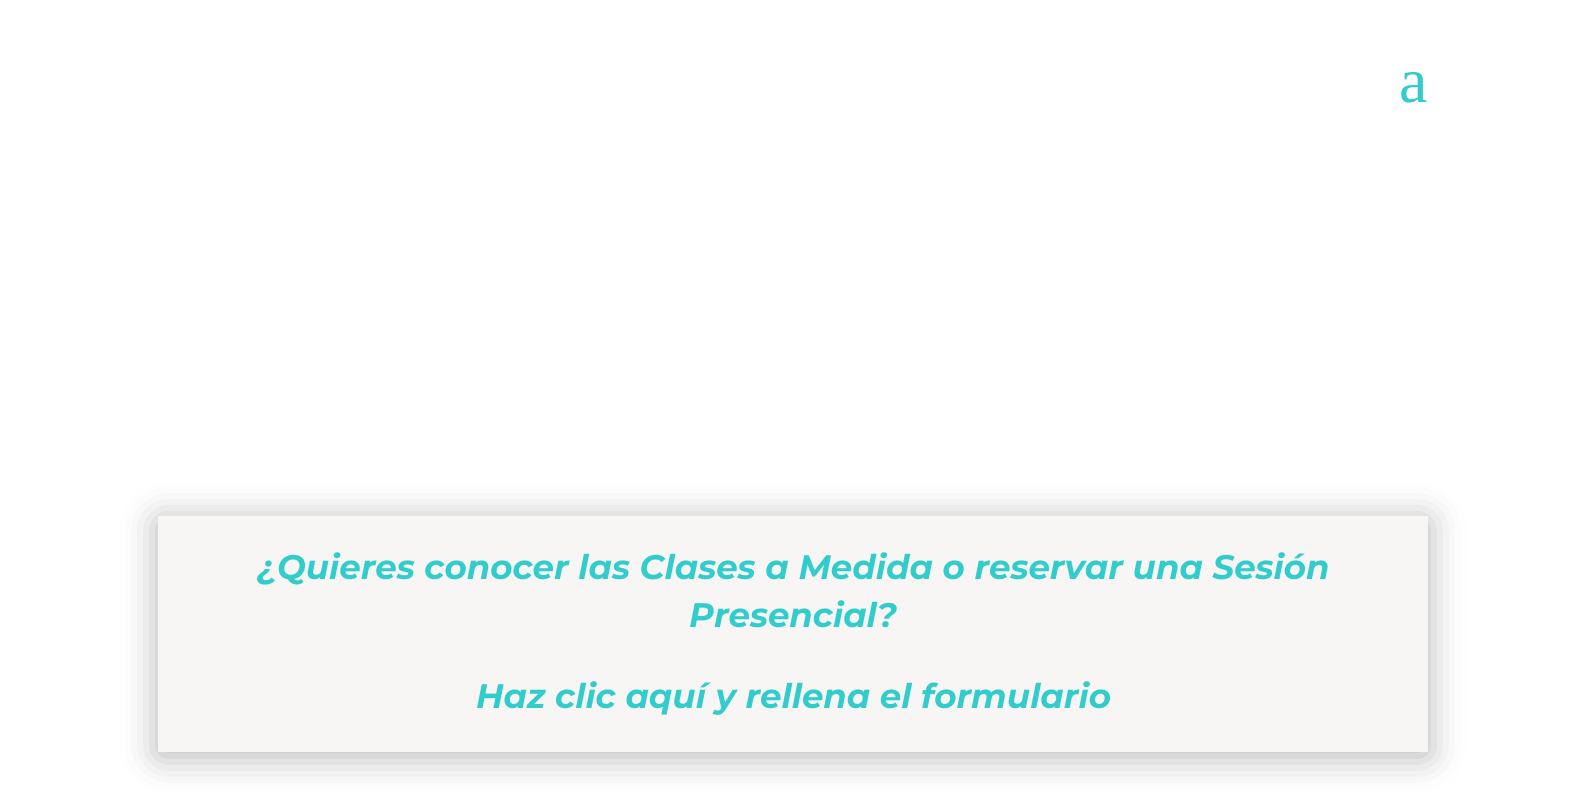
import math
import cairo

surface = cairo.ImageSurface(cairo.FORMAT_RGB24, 1586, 796)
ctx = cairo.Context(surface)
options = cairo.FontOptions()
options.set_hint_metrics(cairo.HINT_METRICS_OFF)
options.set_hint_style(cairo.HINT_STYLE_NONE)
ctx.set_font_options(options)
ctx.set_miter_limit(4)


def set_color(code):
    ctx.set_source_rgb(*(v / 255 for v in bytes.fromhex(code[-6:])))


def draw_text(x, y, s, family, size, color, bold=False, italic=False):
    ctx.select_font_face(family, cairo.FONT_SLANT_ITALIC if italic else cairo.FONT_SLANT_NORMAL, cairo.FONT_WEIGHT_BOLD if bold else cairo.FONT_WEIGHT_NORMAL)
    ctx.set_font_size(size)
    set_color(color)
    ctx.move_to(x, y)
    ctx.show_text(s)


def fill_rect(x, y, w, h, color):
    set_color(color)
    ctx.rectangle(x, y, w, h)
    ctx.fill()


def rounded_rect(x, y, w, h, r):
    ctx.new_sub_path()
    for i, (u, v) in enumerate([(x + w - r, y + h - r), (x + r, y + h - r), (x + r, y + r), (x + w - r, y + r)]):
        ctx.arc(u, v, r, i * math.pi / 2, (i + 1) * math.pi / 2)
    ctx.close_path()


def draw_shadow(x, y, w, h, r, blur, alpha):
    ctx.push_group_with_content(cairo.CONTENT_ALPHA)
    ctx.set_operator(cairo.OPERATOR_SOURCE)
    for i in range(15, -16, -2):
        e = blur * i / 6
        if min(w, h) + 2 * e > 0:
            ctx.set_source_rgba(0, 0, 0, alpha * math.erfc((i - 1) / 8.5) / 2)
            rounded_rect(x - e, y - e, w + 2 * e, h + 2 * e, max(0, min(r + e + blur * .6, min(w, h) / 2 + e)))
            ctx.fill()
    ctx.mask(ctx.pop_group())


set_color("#ffffff")
ctx.paint()
draw_text(1399, 102, "a", "Liberation Serif", 64, "#33cccc")
set_color("#000000")
draw_shadow(158, 520, 1270, 236, 0, 18, 0.3)
fill_rect(158, 516, 1270, 236, "#f7f6f4")
draw_text(257, 579, "¿Quieres conocer las Clases a Medida o reservar una Sesión", "Montserrat", 34, "#33cccc", bold=True, italic=True)
draw_text(689, 627, "Presencial?", "Montserrat", 34, "#33cccc", bold=True, italic=True)
draw_text(476, 708, "Haz clic aquí y rellena el formulario", "Montserrat", 34, "#33cccc", bold=True, italic=True)
surface.write_to_png("output.png")
